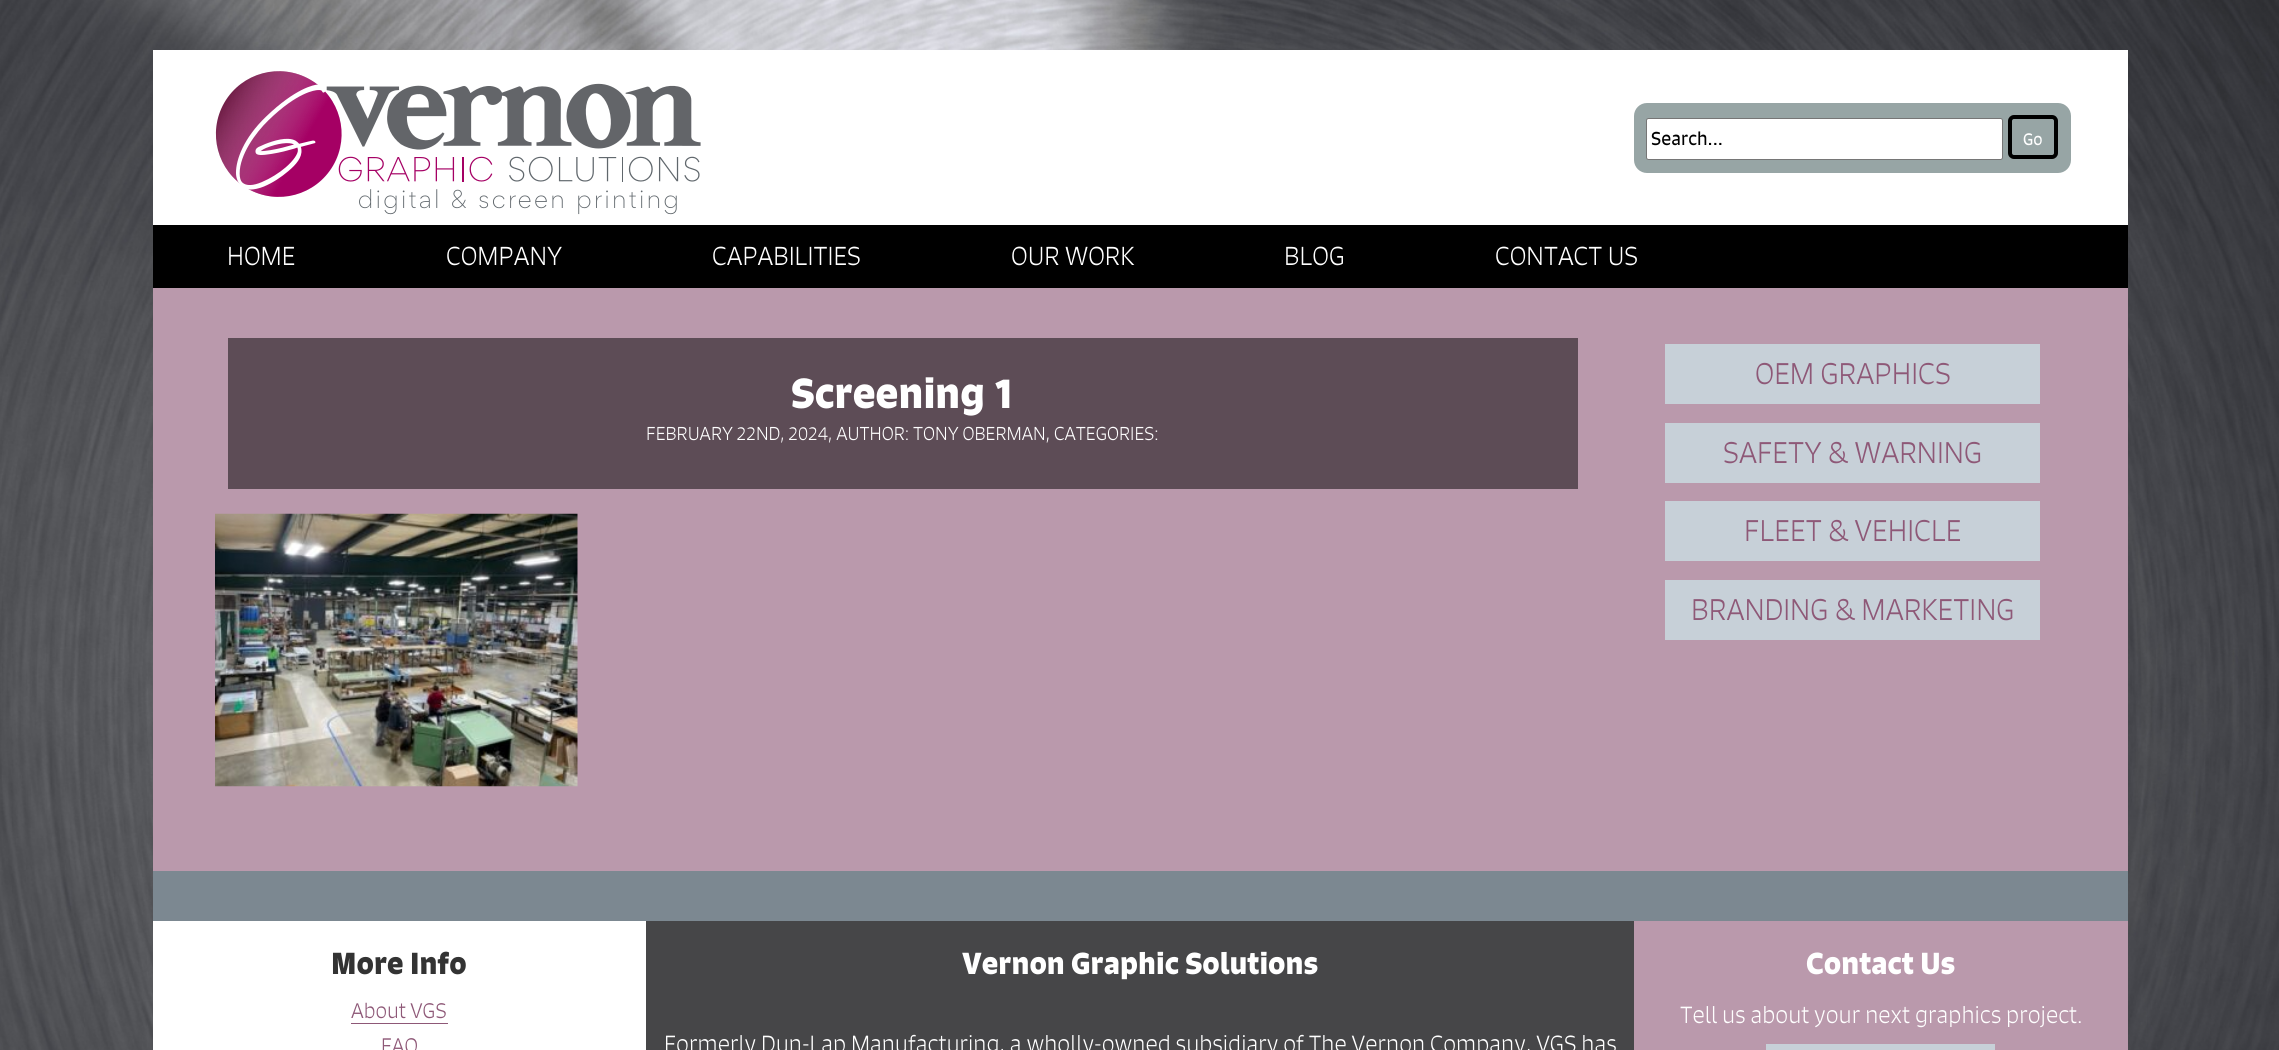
import math
import cairo

surface = cairo.ImageSurface(cairo.FORMAT_RGB24, 2279, 1050)
ctx = cairo.Context(surface)
options = cairo.FontOptions()
options.set_hint_metrics(cairo.HINT_METRICS_OFF)
options.set_hint_style(cairo.HINT_STYLE_NONE)
ctx.set_font_options(options)
ctx.set_miter_limit(4)


def set_color(code):
    ctx.set_source_rgb(*(v / 255 for v in bytes.fromhex(code[-6:])))


def draw_text(x, y, s, family, size, color, bold=False, italic=False):
    ctx.select_font_face(family, cairo.FONT_SLANT_ITALIC if italic else cairo.FONT_SLANT_NORMAL, cairo.FONT_WEIGHT_BOLD if bold else cairo.FONT_WEIGHT_NORMAL)
    ctx.set_font_size(size)
    set_color(color)
    ctx.move_to(x, y)
    ctx.show_text(s)


def fill_rect(x, y, w, h, color):
    set_color(color)
    ctx.rectangle(x, y, w, h)
    ctx.fill()


def rounded_rect(x, y, w, h, r):
    ctx.new_sub_path()
    for i, (u, v) in enumerate([(x + w - r, y + h - r), (x + r, y + h - r), (x + r, y + r), (x + w - r, y + r)]):
        ctx.arc(u, v, r, i * math.pi / 2, (i + 1) * math.pi / 2)
    ctx.close_path()


def draw_image(path, x, y, w, h):
    ctx.save()
    ctx.set_source_surface(cairo.ImageSurface.create_from_png(path), x, y)
    ctx.rectangle(x, y, w, h)
    ctx.fill()
    ctx.restore()


set_color("#ffffff")
ctx.paint()
draw_image("assets/img1.png", 0, 0, 2279, 1050)
fill_rect(153, 50, 1975, 175, "#ffffff")
draw_image("assets/img2.png", 215, 71, 486, 144)
set_color("#97a5a5")
rounded_rect(1634, 103, 437, 70, 13)
ctx.fill()
set_color("#ffffff")
rounded_rect(1646.5, 118.5, 356, 41, 2)
ctx.fill_preserve()
set_color("#767676")
ctx.set_line_width(1)
ctx.stroke()
draw_text(1651, 145, "Search...", "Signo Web", 18, "#000000")
rounded_rect(2010, 117, 46, 40, 4)
ctx.set_line_width(4)
ctx.stroke()
draw_text(2023, 145, "Go", "Signo Web", 16, "#ffffff")
fill_rect(153, 225, 1975, 63, "#000000")
draw_text(227, 265, "HOME", "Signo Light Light", 25, "#ffffff")
draw_text(446, 265, "COMPANY", "Signo Light Light", 25, "#ffffff")
draw_text(712, 265, "CAPABILITIES", "Signo Light Light", 25, "#ffffff")
draw_text(1011, 265, "OUR WORK", "Signo Light Light", 25, "#ffffff")
draw_text(1284, 265, "BLOG", "Signo Light Light", 25, "#ffffff")
draw_text(1495, 265, "CONTACT US", "Signo Light Light", 25, "#ffffff")
fill_rect(153, 288, 1975, 583, "#ba99ac")
fill_rect(228, 338, 1350, 151, "#5d4c56")
draw_text(791, 408, "Screening 1", "Signo Web", 40.5, "#ffffff", bold=True)
draw_text(646, 440, "FEBRUARY 22ND, 2024, AUTHOR: TONY OBERMAN, CATEGORIES:", "Signo Light Light", 18, "#ffffff")
draw_image("assets/img3.png", 215, 513, 363, 274)
fill_rect(1665, 344, 375, 60, "#c7d0d8")
draw_text(1755, 384, "OEM GRAPHICS", "Signo Light Light", 28.75, "#8e5877")
fill_rect(1665, 423, 375, 60, "#c7d0d8")
draw_text(1723, 463, "SAFETY & WARNING", "Signo Light Light", 28.75, "#8e5877")
fill_rect(1665, 501, 375, 60, "#c7d0d8")
draw_text(1744, 541, "FLEET & VEHICLE", "Signo Light Light", 28.75, "#8e5877")
fill_rect(1665, 580, 375, 60, "#c7d0d8")
draw_text(1691, 620, "BRANDING & MARKETING", "Signo Light Light", 28.75, "#8e5877")
fill_rect(1634, 921, 494, 129, "#ba99ac")
fill_rect(153, 871, 1975, 50, "#7c8891")
fill_rect(153, 921, 493, 129, "#ffffff")
draw_text(331, 974, "More Info", "Signo Web", 29.25, "#333333", bold=True)
fill_rect(351, 1023, 97, 1, "#8e5877")
draw_text(351, 1018, "About VGS", "Signo Light Light", 20.25, "#8e5877")
draw_text(381, 1053, "FAQ", "Signo Light Light", 20.25, "#8e5877")
fill_rect(646, 921, 988, 129, "#464648")
draw_text(962, 974, "Vernon Graphic Solutions", "Signo Web", 29.25, "#ffffff", bold=True)
draw_text(664, 1052, "Formerly Dun-Lap Manufacturing, a wholly-owned subsidiary of The Vernon Company, VGS has", "Signo Light Light", 22.5, "#ffffff")
draw_text(1806, 974, "Contact Us", "Signo Web", 29.25, "#ffffff", bold=True)
draw_text(1680, 1023, "Tell us about your next graphics project.", "Signo Light Light", 22.5, "#ffffff")
fill_rect(1766, 1044, 229, 6, "#c7d0d8")
surface.write_to_png("output.png")
